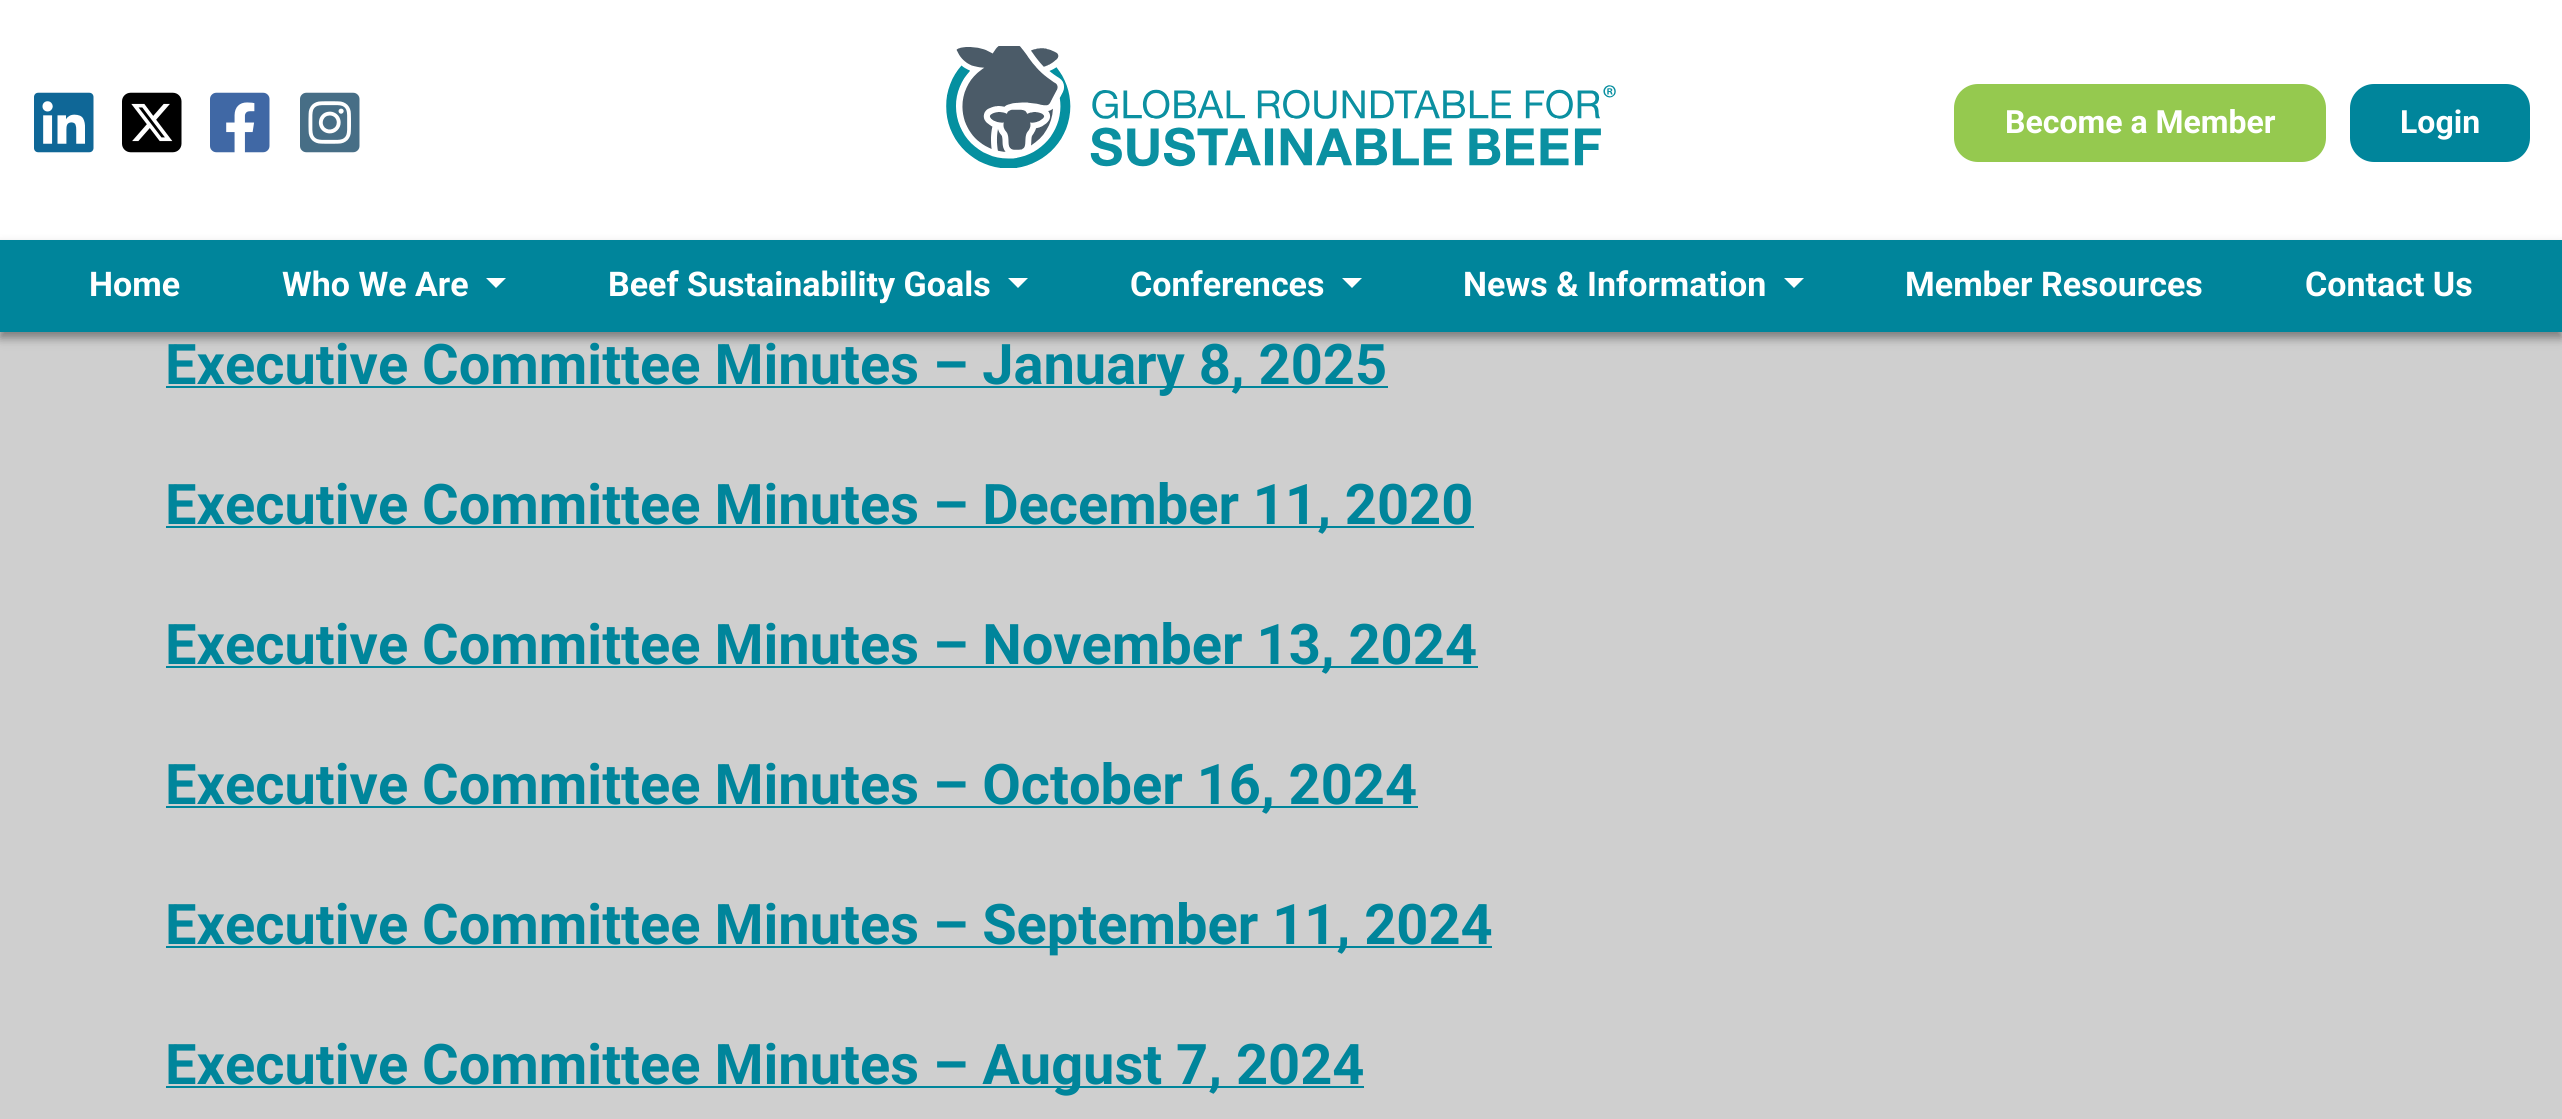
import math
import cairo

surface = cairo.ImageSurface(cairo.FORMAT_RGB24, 2562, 1119)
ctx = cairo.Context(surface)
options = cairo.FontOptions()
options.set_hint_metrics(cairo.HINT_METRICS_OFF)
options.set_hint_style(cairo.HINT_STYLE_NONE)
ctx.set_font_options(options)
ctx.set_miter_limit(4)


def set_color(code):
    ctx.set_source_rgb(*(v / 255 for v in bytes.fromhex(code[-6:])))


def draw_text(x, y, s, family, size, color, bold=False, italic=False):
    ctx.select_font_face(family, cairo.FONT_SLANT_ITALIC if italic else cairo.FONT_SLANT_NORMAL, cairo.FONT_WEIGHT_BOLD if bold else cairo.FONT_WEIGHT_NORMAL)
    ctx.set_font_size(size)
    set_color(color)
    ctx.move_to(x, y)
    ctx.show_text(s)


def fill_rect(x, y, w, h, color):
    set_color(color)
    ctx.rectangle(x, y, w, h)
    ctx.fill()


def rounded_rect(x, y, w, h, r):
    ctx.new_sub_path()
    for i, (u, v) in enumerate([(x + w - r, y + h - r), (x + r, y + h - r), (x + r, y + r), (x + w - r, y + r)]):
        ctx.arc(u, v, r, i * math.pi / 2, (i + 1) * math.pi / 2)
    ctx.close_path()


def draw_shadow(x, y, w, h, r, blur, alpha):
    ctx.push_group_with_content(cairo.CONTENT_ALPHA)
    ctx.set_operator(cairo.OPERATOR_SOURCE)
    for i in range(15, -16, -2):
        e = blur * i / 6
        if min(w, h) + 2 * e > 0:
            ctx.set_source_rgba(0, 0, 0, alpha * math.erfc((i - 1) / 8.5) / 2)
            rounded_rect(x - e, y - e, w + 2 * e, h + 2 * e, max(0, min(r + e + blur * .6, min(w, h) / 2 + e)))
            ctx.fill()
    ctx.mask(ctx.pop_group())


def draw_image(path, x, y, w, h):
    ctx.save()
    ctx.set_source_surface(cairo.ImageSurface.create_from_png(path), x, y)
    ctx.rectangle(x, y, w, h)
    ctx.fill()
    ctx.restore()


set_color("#cfcfcf")
ctx.paint()
fill_rect(0, 0, 2562, 240, "#ffffff")
draw_image("assets/img1.png", 34, 92, 60, 61)
draw_image("assets/img2.png", 122, 92, 60, 61)
draw_image("assets/img3.png", 210, 92, 60, 61)
draw_image("assets/img4.png", 300, 92, 60, 61)
draw_image("assets/img5.png", 946, 46, 670, 122)
set_color("#95c94f")
rounded_rect(1955, 85, 370, 76, 23)
ctx.fill_preserve()
ctx.stroke()
draw_text(2005, 133, "Become a Member", "Roboto", 32, "#ffffff", bold=True)
set_color("#00859b")
rounded_rect(2351, 85, 178, 76, 23)
ctx.fill_preserve()
ctx.stroke()
draw_text(2400, 133, "Login", "Roboto", 32, "#ffffff", bold=True)
set_color("#000000")
draw_shadow(0, 246, 2562, 92, 0, 5, 0.4)
fill_rect(0, 240, 2562, 92, "#00859b")
draw_text(89, 296, "Home", "Roboto", 34, "#ffffff", bold=True)
draw_text(282, 296, "Who We Are", "Roboto", 34, "#ffffff", bold=True)
ctx.new_path()
ctx.move_to(486, 278)
ctx.line_to(506, 278)
ctx.line_to(496, 288)
ctx.close_path()
ctx.fill()
draw_text(608, 296, "Beef Sustainability Goals", "Roboto", 34, "#ffffff", bold=True)
ctx.new_path()
ctx.move_to(1008, 278)
ctx.line_to(1028, 278)
ctx.line_to(1018, 288)
ctx.close_path()
ctx.fill()
draw_text(1130, 296, "Conferences", "Roboto", 34, "#ffffff", bold=True)
ctx.new_path()
ctx.move_to(1342, 278)
ctx.line_to(1362, 278)
ctx.line_to(1352, 288)
ctx.close_path()
ctx.fill()
draw_text(1463, 296, "News & Information", "Roboto", 34, "#ffffff", bold=True)
ctx.new_path()
ctx.move_to(1784, 278)
ctx.line_to(1804, 278)
ctx.line_to(1794, 288)
ctx.close_path()
ctx.fill()
draw_text(1905, 296, "Member Resources", "Roboto", 34, "#ffffff", bold=True)
draw_text(2305, 296, "Contact Us", "Roboto", 34, "#ffffff", bold=True)
fill_rect(166, 386, 1222, 2, "#00859b")
draw_text(165, 384, "Executive Committee Minutes – January 8, 2025", "Roboto", 56, "#00859b", bold=True)
fill_rect(166, 526, 1308, 2, "#00859b")
draw_text(165, 524, "Executive Committee Minutes – December 11, 2020", "Roboto", 56, "#00859b", bold=True)
fill_rect(166, 666, 1312, 2, "#00859b")
draw_text(165, 664, "Executive Committee Minutes – November 13, 2024", "Roboto", 56, "#00859b", bold=True)
fill_rect(166, 806, 1252, 2, "#00859b")
draw_text(165, 804, "Executive Committee Minutes – October 16, 2024", "Roboto", 56, "#00859b", bold=True)
fill_rect(166, 946, 1326, 2, "#00859b")
draw_text(165, 944, "Executive Committee Minutes – September 11, 2024", "Roboto", 56, "#00859b", bold=True)
fill_rect(166, 1086, 1198, 2, "#00859b")
draw_text(165, 1084, "Executive Committee Minutes – August 7, 2024", "Roboto", 56, "#00859b", bold=True)
surface.write_to_png("output.png")
